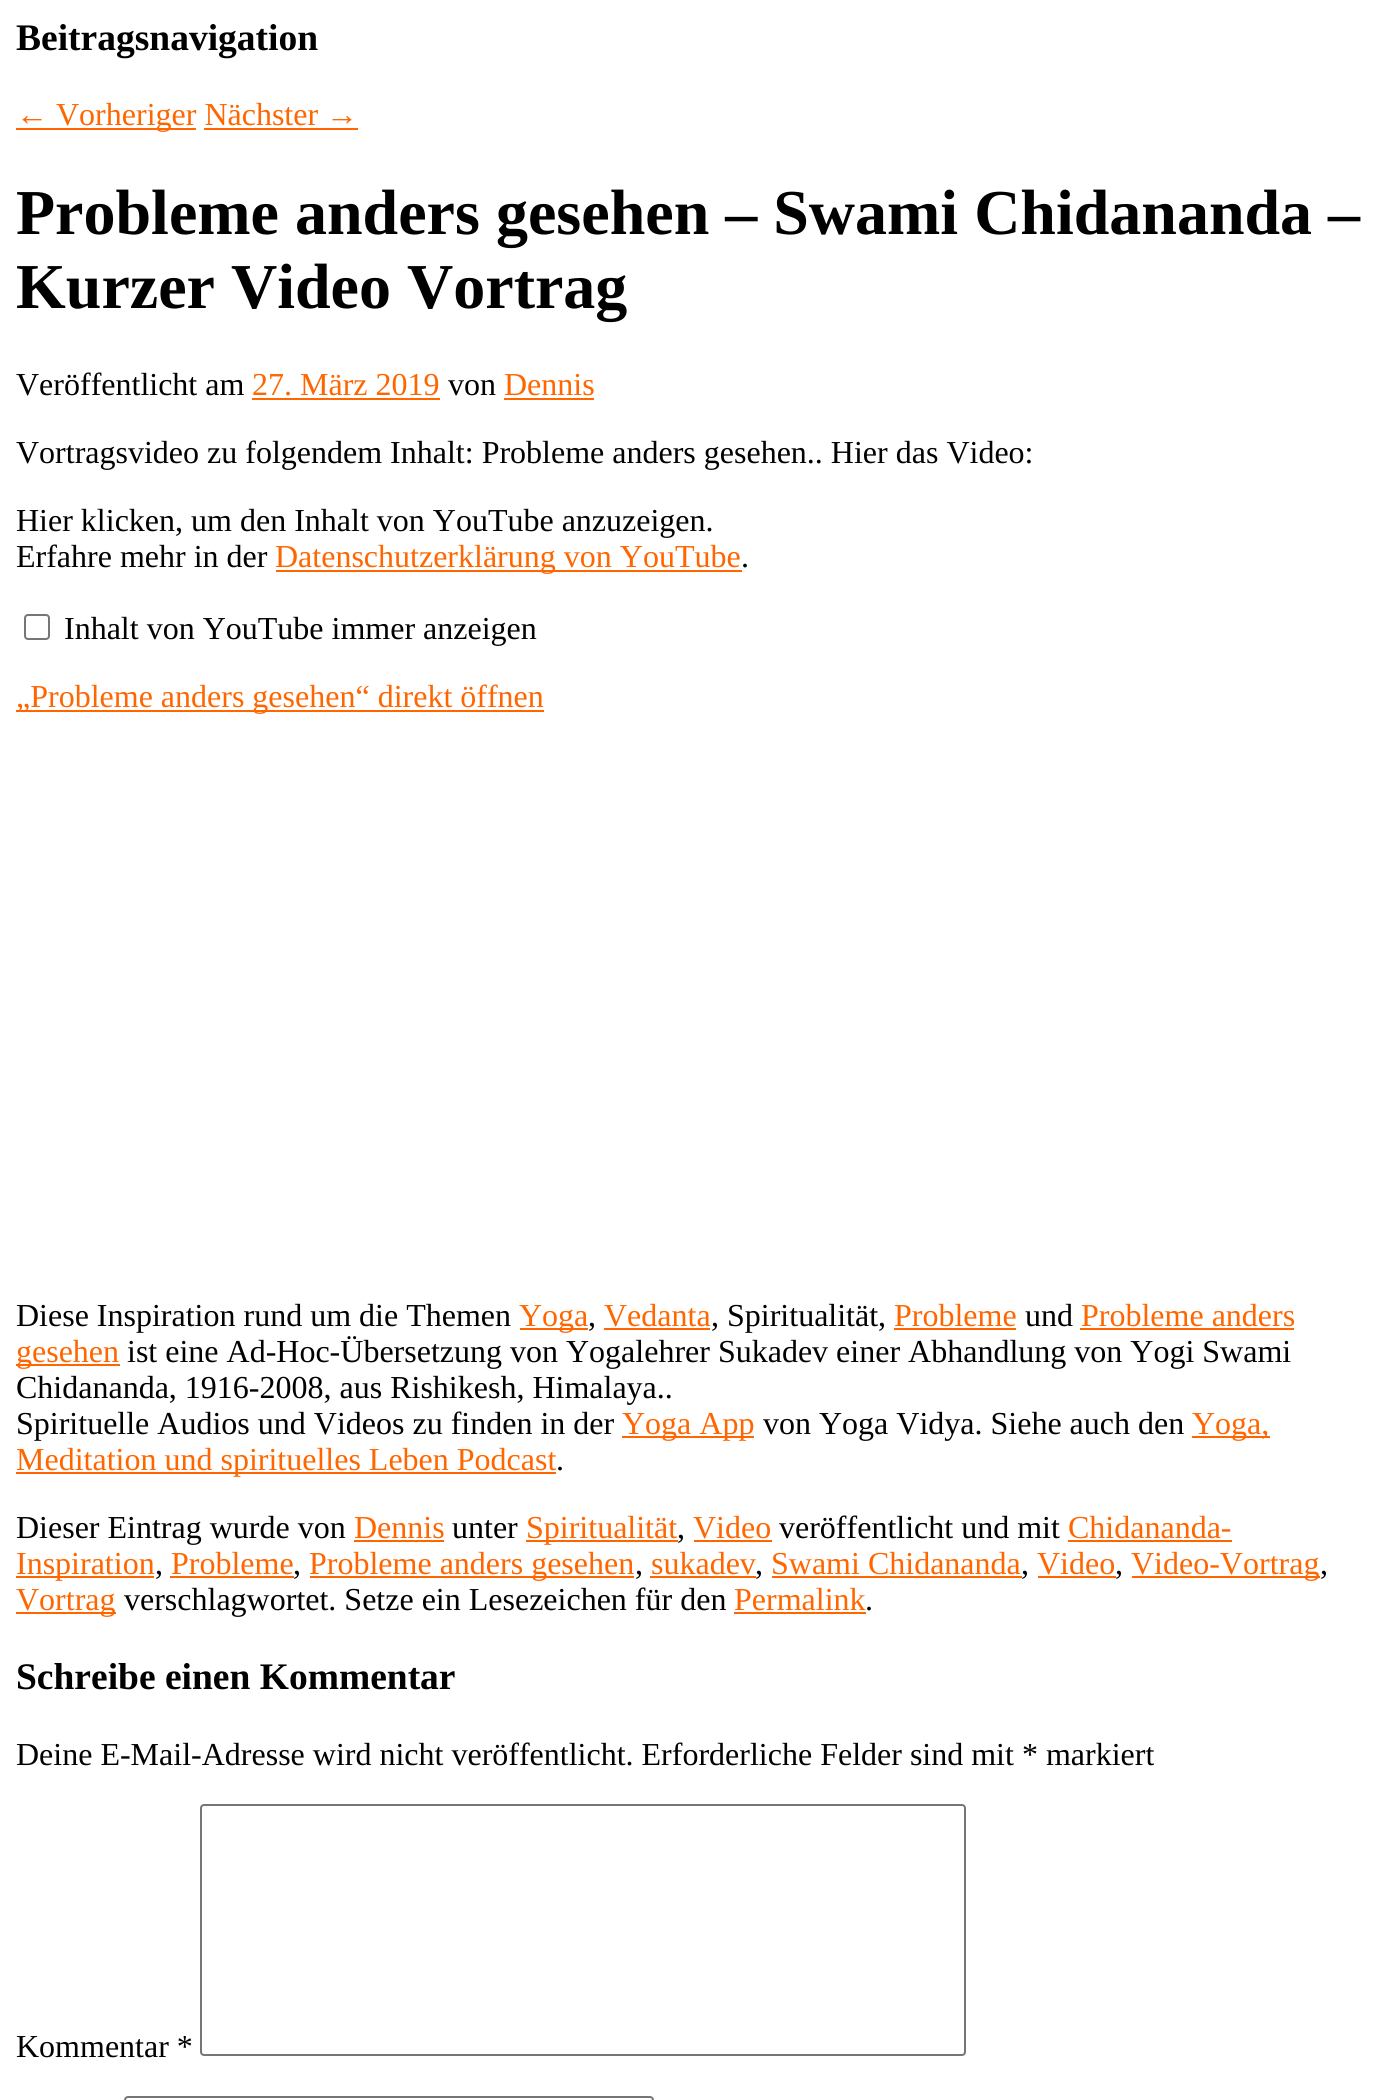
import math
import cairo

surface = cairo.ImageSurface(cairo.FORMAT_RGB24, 1386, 2100)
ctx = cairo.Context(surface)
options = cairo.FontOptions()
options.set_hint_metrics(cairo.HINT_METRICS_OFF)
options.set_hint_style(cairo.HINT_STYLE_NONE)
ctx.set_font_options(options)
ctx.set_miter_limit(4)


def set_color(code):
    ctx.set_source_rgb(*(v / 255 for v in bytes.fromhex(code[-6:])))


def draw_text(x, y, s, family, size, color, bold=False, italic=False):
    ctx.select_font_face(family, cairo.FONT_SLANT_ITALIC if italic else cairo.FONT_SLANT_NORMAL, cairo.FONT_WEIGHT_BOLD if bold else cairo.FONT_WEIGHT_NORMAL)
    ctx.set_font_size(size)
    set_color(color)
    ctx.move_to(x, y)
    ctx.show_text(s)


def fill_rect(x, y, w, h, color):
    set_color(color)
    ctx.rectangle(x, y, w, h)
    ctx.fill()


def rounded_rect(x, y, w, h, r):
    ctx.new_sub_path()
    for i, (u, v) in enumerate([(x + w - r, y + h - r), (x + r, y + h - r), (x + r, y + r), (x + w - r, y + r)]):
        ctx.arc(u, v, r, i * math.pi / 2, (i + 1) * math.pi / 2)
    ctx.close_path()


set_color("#ffffff")
ctx.paint()
draw_text(16, 50, "Beitragsnavigation", "Liberation Serif", 37.5, "#000000", bold=True)
fill_rect(16, 128, 180, 2, "#ff6600")
draw_text(16, 125, "← Vorheriger Nächster →", "Liberation Serif", 32, "#ff6600")
fill_rect(204, 128, 154, 2, "#ff6600")
draw_text(16, 234, "Probleme anders gesehen – Swami Chidananda –", "Liberation Serif", 64, "#000000", bold=True)
draw_text(16, 308, "Kurzer Video Vortrag", "Liberation Serif", 64, "#000000", bold=True)
draw_text(16, 395, "Veröffentlicht am", "Liberation Serif", 32, "#000000")
draw_text(252, 395, "27. März 2019", "Liberation Serif", 32, "#ff6600")
fill_rect(252, 398, 188, 2, "#ff6600")
draw_text(448, 395, "von", "Liberation Serif", 32, "#000000")
draw_text(504, 395, "Dennis", "Liberation Serif", 32, "#ff6600")
fill_rect(504, 398, 90, 2, "#ff6600")
draw_text(16, 463, "Vortragsvideo zu folgendem Inhalt: Probleme anders gesehen.. Hier das Video:", "Liberation Serif", 32, "#000000")
draw_text(16, 531, "Hier klicken, um den Inhalt von YouTube anzuzeigen.", "Liberation Serif", 32, "#000000")
draw_text(16, 567, "Erfahre mehr in der", "Liberation Serif", 32, "#000000")
fill_rect(276, 570, 466, 2, "#ff6600")
draw_text(275, 567, "Datenschutzerklärung von YouTube", "Liberation Serif", 32, "#ff6600")
draw_text(741, 567, ".", "Liberation Serif", 32, "#000000")
rounded_rect(25, 615, 24, 24, 3)
set_color("#767676")
ctx.stroke()
draw_text(64, 639, "Inhalt von YouTube immer anzeigen", "Liberation Serif", 32, "#000000")
fill_rect(16, 710, 528, 2, "#ff6600")
draw_text(16, 707, "„Probleme anders gesehen“ direkt öffnen", "Liberation Serif", 32, "#ff6600")
draw_text(16, 1326, "Diese Inspiration rund um die Themen", "Liberation Serif", 32, "#000000")
fill_rect(520, 1328, 68, 2, "#ff6600")
draw_text(519, 1326, "Yoga", "Liberation Serif", 32, "#ff6600")
draw_text(588, 1326, ",", "Liberation Serif", 32, "#000000")
draw_text(604, 1326, "Vedanta", "Liberation Serif", 32, "#ff6600")
fill_rect(604, 1328, 106, 2, "#ff6600")
draw_text(711, 1326, ", Spiritualität,", "Liberation Serif", 32, "#000000")
draw_text(894, 1326, "Probleme", "Liberation Serif", 32, "#ff6600")
fill_rect(894, 1328, 122, 2, "#ff6600")
draw_text(1025, 1326, "und", "Liberation Serif", 32, "#000000")
draw_text(1081, 1326, "Probleme anders", "Liberation Serif", 32, "#ff6600")
fill_rect(1080, 1328, 214, 2, "#ff6600")
fill_rect(16, 1364, 104, 2, "#ff6600")
draw_text(16, 1362, "gesehen", "Liberation Serif", 32, "#ff6600")
draw_text(127, 1362, "ist eine Ad-Hoc-Übersetzung von Yogalehrer Sukadev einer Abhandlung von Yogi Swami", "Liberation Serif", 32, "#000000")
draw_text(16, 1398, "Chidananda, 1916-2008, aus Rishikesh, Himalaya..", "Liberation Serif", 32, "#000000")
draw_text(16, 1434, "Spirituelle Audios und Videos zu finden in der", "Liberation Serif", 32, "#000000")
fill_rect(622, 1436, 132, 2, "#ff6600")
draw_text(622, 1434, "Yoga App", "Liberation Serif", 32, "#ff6600")
draw_text(763, 1434, "von Yoga Vidya. Siehe auch den", "Liberation Serif", 32, "#000000")
fill_rect(1192, 1436, 78, 2, "#ff6600")
draw_text(1192, 1434, "Yoga,", "Liberation Serif", 32, "#ff6600")
fill_rect(16, 1472, 540, 2, "#ff6600")
draw_text(16, 1470, "Meditation und spirituelles Leben Podcast", "Liberation Serif", 32, "#ff6600")
draw_text(556, 1470, ".", "Liberation Serif", 32, "#000000")
draw_text(16, 1538, "Dieser Eintrag wurde von", "Liberation Serif", 32, "#000000")
draw_text(354, 1538, "Dennis", "Liberation Serif", 32, "#ff6600")
fill_rect(354, 1540, 90, 2, "#ff6600")
draw_text(452, 1538, "unter", "Liberation Serif", 32, "#000000")
fill_rect(526, 1540, 152, 2, "#ff6600")
draw_text(526, 1538, "Spiritualität", "Liberation Serif", 32, "#ff6600")
draw_text(677, 1538, ",", "Liberation Serif", 32, "#000000")
draw_text(693, 1538, "Video", "Liberation Serif", 32, "#ff6600")
fill_rect(694, 1540, 78, 2, "#ff6600")
draw_text(779, 1538, "veröffentlicht und mit", "Liberation Serif", 32, "#000000")
draw_text(1068, 1538, "Chidananda-", "Liberation Serif", 32, "#ff6600")
fill_rect(1068, 1540, 164, 2, "#ff6600")
fill_rect(16, 1576, 138, 2, "#ff6600")
draw_text(16, 1574, "Inspiration", "Liberation Serif", 32, "#ff6600")
draw_text(155, 1574, ",", "Liberation Serif", 32, "#000000")
draw_text(171, 1574, "Probleme", "Liberation Serif", 32, "#ff6600")
fill_rect(170, 1576, 124, 2, "#ff6600")
draw_text(293, 1574, ",", "Liberation Serif", 32, "#000000")
fill_rect(310, 1576, 324, 2, "#ff6600")
draw_text(309, 1574, "Probleme anders gesehen", "Liberation Serif", 32, "#ff6600")
draw_text(635, 1574, ",", "Liberation Serif", 32, "#000000")
draw_text(651, 1574, "sukadev", "Liberation Serif", 32, "#ff6600")
fill_rect(650, 1576, 106, 2, "#ff6600")
draw_text(755, 1574, ",", "Liberation Serif", 32, "#000000")
draw_text(771, 1574, "Swami Chidananda", "Liberation Serif", 32, "#ff6600")
fill_rect(772, 1576, 250, 2, "#ff6600")
draw_text(1021, 1574, ",", "Liberation Serif", 32, "#000000")
draw_text(1037, 1574, "Video", "Liberation Serif", 32, "#ff6600")
fill_rect(1038, 1576, 78, 2, "#ff6600")
draw_text(1115, 1574, ",", "Liberation Serif", 32, "#000000")
fill_rect(1132, 1576, 188, 2, "#ff6600")
draw_text(1131, 1574, "Video-Vortrag", "Liberation Serif", 32, "#ff6600")
draw_text(1320, 1574, ",", "Liberation Serif", 32, "#000000")
fill_rect(16, 1612, 100, 2, "#ff6600")
draw_text(16, 1610, "Vortrag", "Liberation Serif", 32, "#ff6600")
draw_text(124, 1610, "verschlagwortet. Setze ein Lesezeichen für den", "Liberation Serif", 32, "#000000")
draw_text(734, 1610, "Permalink", "Liberation Serif", 32, "#ff6600")
fill_rect(734, 1612, 132, 2, "#ff6600")
draw_text(865, 1610, ".", "Liberation Serif", 32, "#000000")
draw_text(16, 1689, "Schreibe einen Kommentar", "Liberation Serif", 37.5, "#000000", bold=True)
draw_text(16, 1765, "Deine E-Mail-Adresse wird nicht veröffentlicht. Erforderliche Felder sind mit * markiert", "Liberation Serif", 32, "#000000")
draw_text(16, 2057, "Kommentar *", "Liberation Serif", 32, "#000000")
rounded_rect(201, 1805, 764, 250, 3)
set_color("#767676")
ctx.stroke()
rounded_rect(125, 2097, 528, 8, 3)
ctx.stroke()
surface.write_to_png("output.png")
